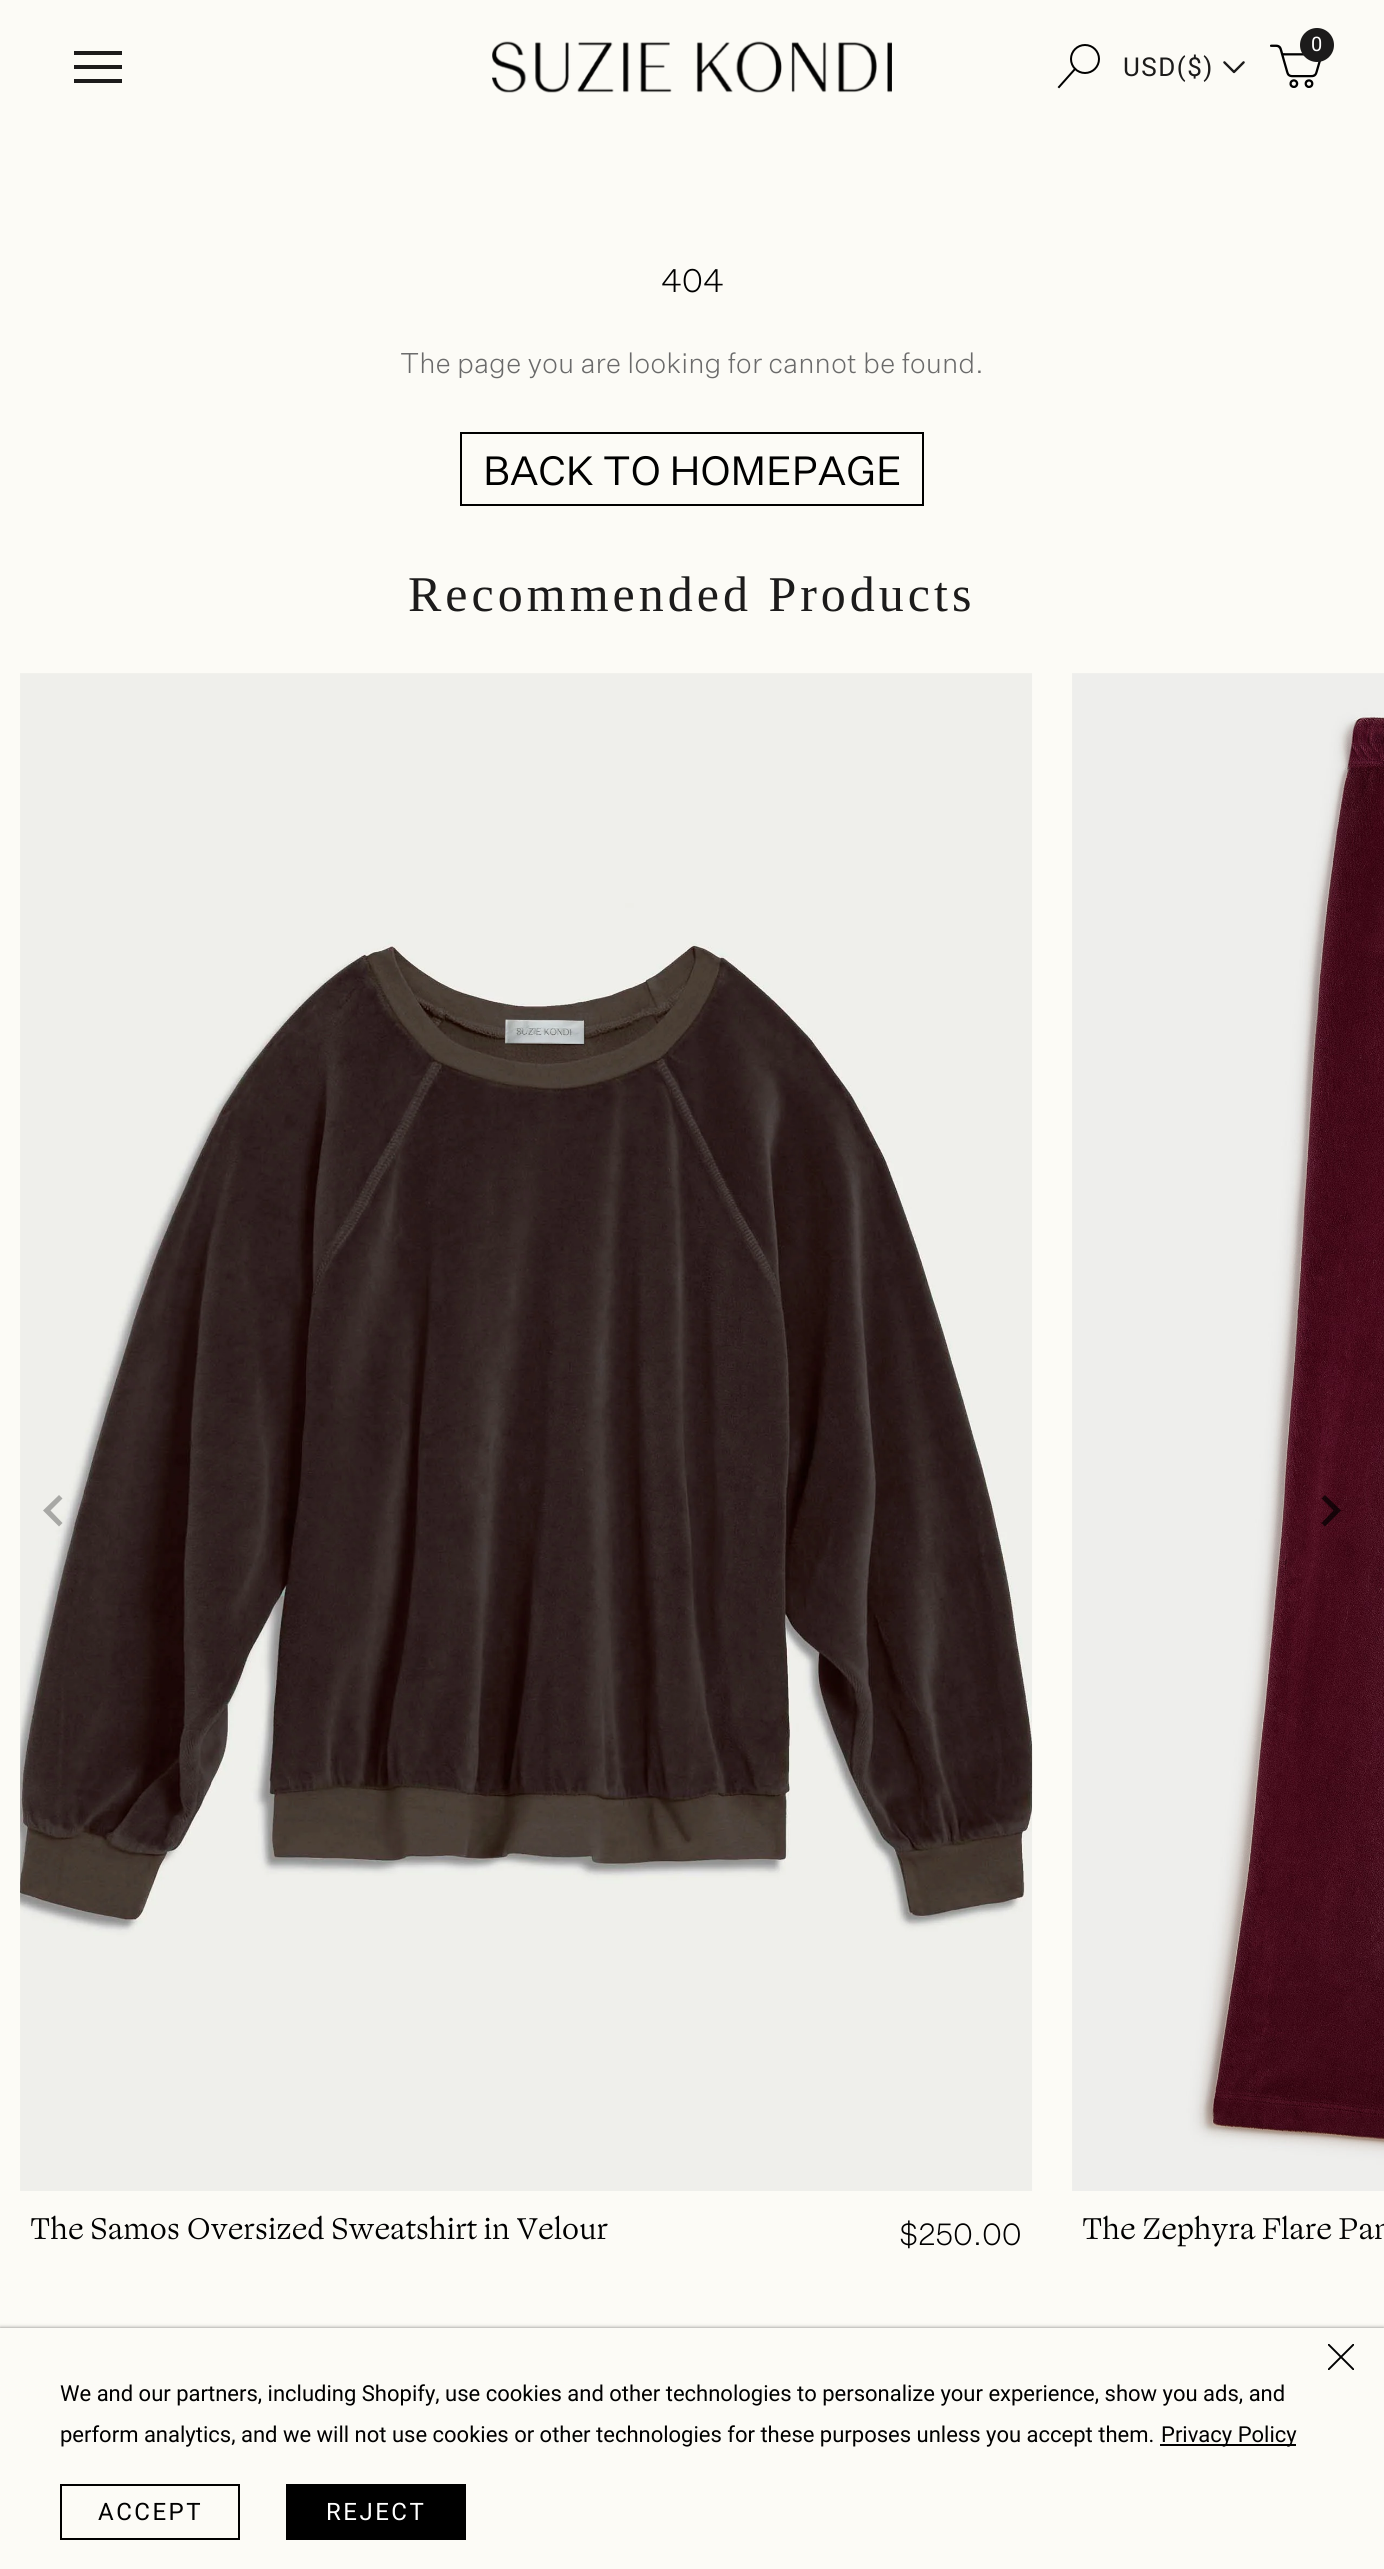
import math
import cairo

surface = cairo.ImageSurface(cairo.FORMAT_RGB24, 1384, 2569)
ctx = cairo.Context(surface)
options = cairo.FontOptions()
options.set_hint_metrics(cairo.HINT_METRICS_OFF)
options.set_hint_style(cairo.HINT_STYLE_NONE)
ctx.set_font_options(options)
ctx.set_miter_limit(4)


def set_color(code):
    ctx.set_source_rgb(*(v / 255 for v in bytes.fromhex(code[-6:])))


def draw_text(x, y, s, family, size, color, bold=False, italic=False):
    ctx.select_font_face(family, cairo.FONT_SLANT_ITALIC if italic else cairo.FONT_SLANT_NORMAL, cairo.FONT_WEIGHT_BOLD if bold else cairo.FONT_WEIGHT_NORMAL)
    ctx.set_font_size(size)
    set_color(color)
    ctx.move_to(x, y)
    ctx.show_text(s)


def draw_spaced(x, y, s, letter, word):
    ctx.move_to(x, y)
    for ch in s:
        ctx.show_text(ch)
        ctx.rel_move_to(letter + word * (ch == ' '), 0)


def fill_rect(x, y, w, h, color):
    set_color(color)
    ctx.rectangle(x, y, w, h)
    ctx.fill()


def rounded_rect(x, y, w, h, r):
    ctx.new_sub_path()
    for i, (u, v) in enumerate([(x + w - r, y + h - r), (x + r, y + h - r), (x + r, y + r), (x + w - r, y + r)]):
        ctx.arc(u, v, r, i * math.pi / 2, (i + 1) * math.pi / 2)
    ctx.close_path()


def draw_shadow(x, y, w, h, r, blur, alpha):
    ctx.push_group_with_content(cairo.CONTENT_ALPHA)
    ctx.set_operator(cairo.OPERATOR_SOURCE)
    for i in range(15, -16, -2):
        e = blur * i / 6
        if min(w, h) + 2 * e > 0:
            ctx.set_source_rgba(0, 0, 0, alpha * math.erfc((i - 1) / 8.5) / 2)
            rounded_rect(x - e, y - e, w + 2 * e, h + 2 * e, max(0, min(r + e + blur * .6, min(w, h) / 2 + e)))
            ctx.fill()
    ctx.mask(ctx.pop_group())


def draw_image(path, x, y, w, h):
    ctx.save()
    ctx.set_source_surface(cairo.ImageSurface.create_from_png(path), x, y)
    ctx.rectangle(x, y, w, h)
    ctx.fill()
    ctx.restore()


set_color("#fcfbf6")
ctx.paint()
set_color("#1c1b1b")
ctx.new_path()
ctx.move_to(74, 83)
ctx.line_to(74, 79)
ctx.line_to(122, 79)
ctx.line_to(122, 83)
ctx.close_path()
ctx.move_to(74, 65)
ctx.line_to(122, 65)
ctx.line_to(122, 69)
ctx.line_to(74, 69)
ctx.close_path()
ctx.move_to(74, 51)
ctx.line_to(122, 51)
ctx.line_to(122, 55)
ctx.line_to(74, 55)
ctx.close_path()
ctx.fill()
draw_image("assets/img1.png", 492, 41, 400, 52)
ctx.arc(1085, 59, 14, 0, 2 * math.pi)
set_color("#000000")
ctx.stroke()
ctx.new_path()
ctx.move_to(1075, 69)
ctx.line_to(1059, 87)
ctx.set_line_cap(cairo.LINE_CAP_SQUARE)
ctx.stroke()
ctx.select_font_face("Roboto")
ctx.set_font_size(26)
set_color("#1c1b1b")
draw_spaced(1123, 76, "USD($)", 1.5, 0)
draw_image("assets/img2.png", 1223, 61, 22, 13)
draw_image("assets/img3.png", 1270, 44, 51, 44)
ctx.arc(1317, 45, 17, 0, 2 * math.pi)
ctx.fill()
ctx.set_font_size(20)
set_color("#ffffff")
draw_spaced(1311, 51, "0", 1.5, 0)
draw_text(661, 292, "404", "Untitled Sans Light", 32, "#000000")
draw_text(400, 373, "The page you are looking for cannot be found.", "Untitled Sans Light", 28, "#6a6a6a")
ctx.rectangle(461, 433, 462, 72)
set_color("#000000")
ctx.set_line_cap(cairo.LINE_CAP_BUTT)
ctx.stroke()
draw_text(483, 485, "BACK TO HOMEPAGE", "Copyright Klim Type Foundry", 40, "#000000")
ctx.select_font_face("Liberation Serif")
ctx.set_font_size(50)
set_color("#1c1b1b")
draw_spaced(408, 611, "Recommended Products", 4, 0)
draw_image("assets/img4.png", 20, 673, 1013, 1518)
ctx.set_source_rgba(0, 0, 0, 0.3)
ctx.new_path()
ctx.move_to(59, 1495)
ctx.line_to(62.5, 1498.5)
ctx.line_to(50.5, 1510.5)
ctx.line_to(62.5, 1523)
ctx.line_to(59, 1526.5)
ctx.line_to(43, 1510.5)
ctx.close_path()
ctx.fill()
draw_image("assets/img5.png", 1072, 673, 312, 1518)
ctx.set_source_rgba(0, 0, 0, 0.7)
ctx.new_path()
ctx.move_to(1325, 1495)
ctx.line_to(1321.5, 1498.5)
ctx.line_to(1333.5, 1510.5)
ctx.line_to(1321.5, 1523)
ctx.line_to(1325, 1526.5)
ctx.line_to(1341, 1510.5)
ctx.close_path()
ctx.fill()
draw_text(30, 2239, "The Samos Oversized Sweatshirt in Velour", "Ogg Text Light", 30, "#000000")
draw_text(899, 2245, "$250.00", "Untitled Sans Light", 30, "#000000")
draw_text(1082, 2239, "The Zephyra Flare Pan", "Ogg Text Light", 30, "#000000")
set_color("#000000")
draw_shadow(0, 2328, 1384, 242, 0, 2, 0.5)
fill_rect(0, 2328, 1384, 241, "#fcfbf6")
ctx.save()
ctx.rectangle(1328, 2344, 26, 26)
ctx.clip()
ctx.new_path()
ctx.move_to(1354, 2344)
ctx.line_to(1328, 2370)
ctx.move_to(1354, 2370)
ctx.line_to(1328, 2344)
set_color("#000000")
ctx.set_line_width(1.9)
ctx.stroke()
ctx.restore()
draw_text(60, 2401, "We and our partners, including Shopify, use cookies and other technologies to personalize your experience, show you ads, and", "Roboto", 22, "#000000")
draw_text(60, 2442, "perform analytics, and we will not use cookies or other technologies for these purposes unless you accept them.", "Roboto", 22, "#000000")
fill_rect(1160, 2444, 136, 2, "#000000")
draw_text(1161, 2442, "Privacy Policy", "Roboto", 22, "#000000")
ctx.rectangle(61, 2485, 178, 54)
ctx.stroke()
ctx.set_font_size(24)
draw_spaced(98, 2520, "ACCEPT", 2.5, 0)
fill_rect(286, 2484, 180, 56, "#000000")
set_color("#ffffff")
draw_spaced(326, 2520, "REJECT", 2.5, 0)
surface.write_to_png("output.png")
